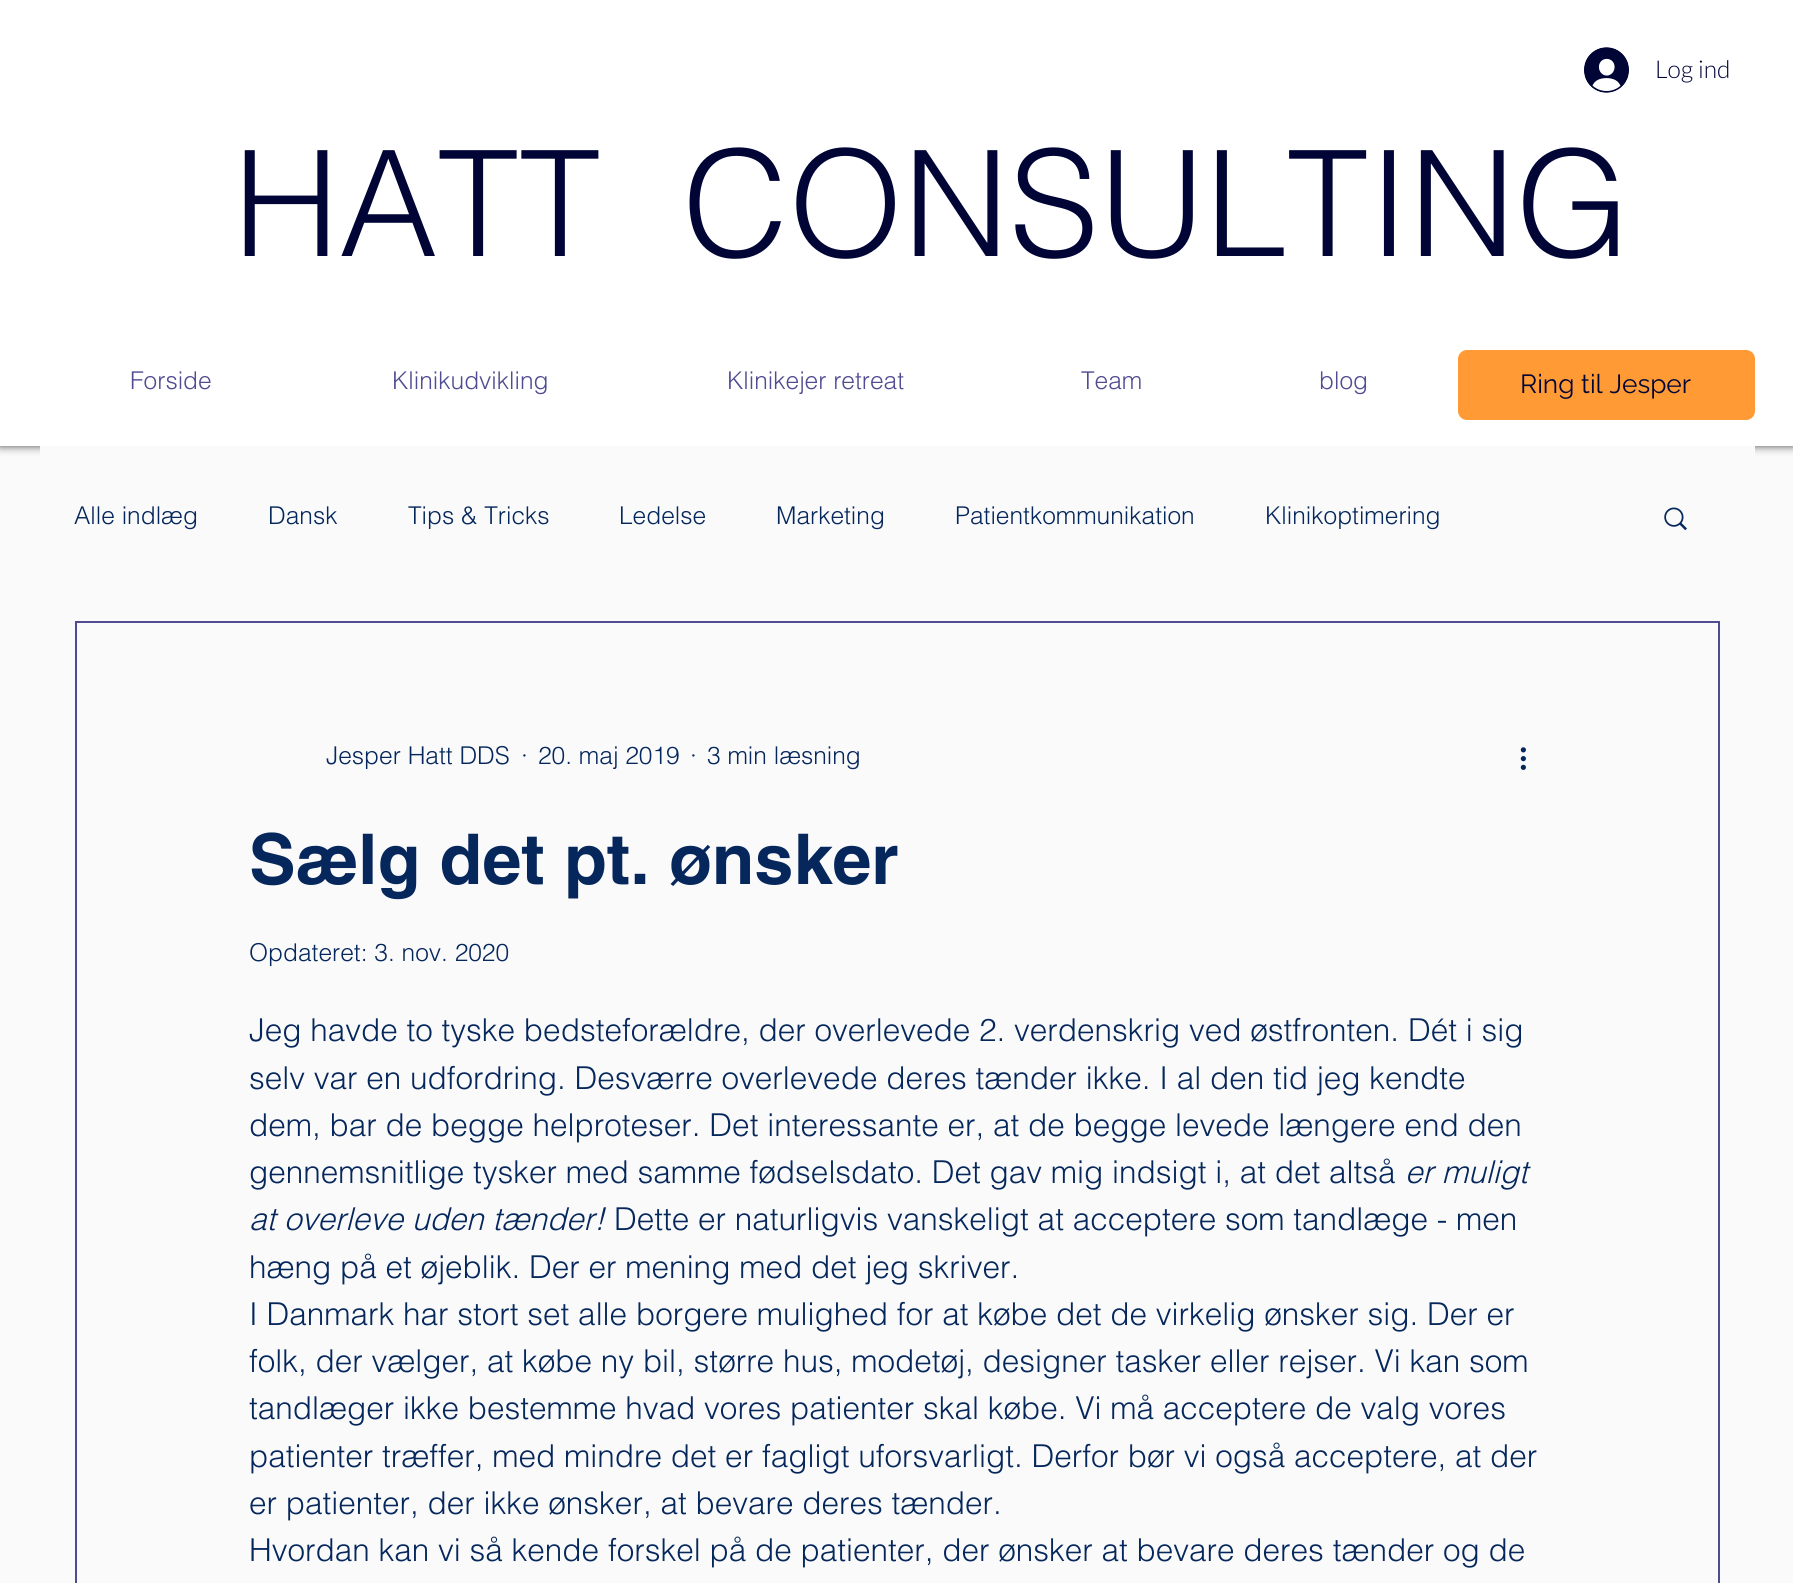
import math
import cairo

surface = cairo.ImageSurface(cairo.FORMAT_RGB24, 1793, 1583)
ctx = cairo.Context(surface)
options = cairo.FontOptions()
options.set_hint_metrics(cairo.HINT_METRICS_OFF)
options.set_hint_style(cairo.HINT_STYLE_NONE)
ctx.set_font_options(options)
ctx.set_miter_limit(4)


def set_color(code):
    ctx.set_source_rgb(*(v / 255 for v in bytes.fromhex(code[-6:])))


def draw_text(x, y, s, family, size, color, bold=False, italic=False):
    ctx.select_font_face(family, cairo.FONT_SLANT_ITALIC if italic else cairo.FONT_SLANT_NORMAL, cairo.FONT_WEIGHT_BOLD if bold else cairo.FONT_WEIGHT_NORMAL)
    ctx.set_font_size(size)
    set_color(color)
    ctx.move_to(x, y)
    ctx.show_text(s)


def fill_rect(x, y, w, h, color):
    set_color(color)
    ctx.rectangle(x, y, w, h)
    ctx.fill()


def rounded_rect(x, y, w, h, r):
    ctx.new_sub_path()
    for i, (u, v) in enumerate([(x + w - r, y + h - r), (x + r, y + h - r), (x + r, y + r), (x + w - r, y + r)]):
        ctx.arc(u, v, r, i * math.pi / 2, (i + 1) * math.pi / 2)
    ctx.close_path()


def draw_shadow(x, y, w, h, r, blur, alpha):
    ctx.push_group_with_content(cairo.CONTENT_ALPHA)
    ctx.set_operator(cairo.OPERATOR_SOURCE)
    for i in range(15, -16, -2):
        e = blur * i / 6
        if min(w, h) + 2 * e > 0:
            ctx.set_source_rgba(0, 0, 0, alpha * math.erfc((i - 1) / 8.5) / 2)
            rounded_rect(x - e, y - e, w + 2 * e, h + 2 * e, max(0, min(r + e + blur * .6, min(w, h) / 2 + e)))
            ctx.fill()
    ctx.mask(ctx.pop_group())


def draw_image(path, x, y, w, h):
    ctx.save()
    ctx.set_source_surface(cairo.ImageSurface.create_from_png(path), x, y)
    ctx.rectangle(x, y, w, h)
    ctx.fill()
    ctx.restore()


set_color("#fafafa")
ctx.paint()
set_color("#000000")
draw_shadow(0, 0, 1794, 446, 0, 4.5, 0.7)
fill_rect(0, 0, 1793, 446, "#ffffff")
draw_image("assets/img1.png", 1584, 47, 45, 46)
draw_text(1655, 78, "Log ind", "Lato Light", 24.5, "#000536")
draw_text(233, 256, "HATT  CONSULTING", "helvetica Light", 147, "#000536")
draw_text(130, 389, "Forside", "helvetica Light", 24.5, "#504c91")
draw_text(392, 389, "Klinikudvikling", "helvetica Light", 24.5, "#504c91")
draw_text(727, 389, "Klinikejer retreat", "helvetica Light", 24.5, "#504c91")
draw_text(1081, 389, "Team", "helvetica Light", 24.5, "#504c91")
draw_text(1319, 389, "blog", "helvetica Light", 24.5, "#504c91")
set_color("#ff9a35")
rounded_rect(1458, 350, 297, 70, 9)
ctx.fill()
draw_text(1520, 393, "Ring til Jesper", "Raleway", 26.25, "#000536")
fill_rect(40, 446, 1715, 10, "#fafafa")
draw_text(74, 524, "Alle indlæg", "helvetica Light", 24.5, "#05275c")
draw_text(268, 524, "Dansk", "helvetica Light", 24.5, "#05275c")
draw_text(408, 524, "Tips & Tricks", "helvetica Light", 24.5, "#05275c")
draw_text(619, 524, "Ledelse", "helvetica Light", 24.5, "#05275c")
draw_text(776, 524, "Marketing", "helvetica Light", 24.5, "#05275c")
draw_text(955, 524, "Patientkommunikation", "helvetica Light", 24.5, "#05275c")
draw_text(1265, 524, "Klinikoptimering", "helvetica Light", 24.5, "#05275c")
draw_image("assets/img2.png", 1664, 507, 23, 24)
ctx.rectangle(76, 622, 1643, 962)
set_color("#504c91")
ctx.stroke()
draw_text(326, 764, "Jesper Hatt DDS", "helvetica Light", 24.5, "#05275c")
draw_text(521, 764, "·", "helvetica Light", 24.5, "#05275c")
draw_text(538, 764, "20. maj 2019", "helvetica Light", 24.5, "#05275c")
draw_text(690, 764, "·", "helvetica Light", 24.5, "#05275c")
draw_text(707, 764, "3 min læsning", "helvetica Light", 24.5, "#05275c")
draw_image("assets/img3.png", 1520, 747, 6, 23)
draw_text(249, 884, "Sælg det pt. ønsker", "helvetica", 70, "#05275c", bold=True)
draw_text(249, 961, "Opdateret: 3. nov. 2020", "helvetica Light", 24.5, "#05275c")
draw_text(249, 1041, "Jeg havde to tyske bedsteforældre, der overlevede 2. verdenskrig ved østfronten. Dét i sig", "helvetica Light", 31.5, "#05275c")
draw_text(249, 1089, "selv var en udfordring. Desværre overlevede deres tænder ikke. I al den tid jeg kendte", "helvetica Light", 31.5, "#05275c")
draw_text(249, 1136, "dem, bar de begge helproteser. Det interessante er, at de begge levede længere end den", "helvetica Light", 31.5, "#05275c")
draw_text(249, 1183, "gennemsnitlige tysker med samme fødselsdato. Det gav mig indsigt i, at det altså", "helvetica Light", 31.5, "#05275c")
draw_text(1405, 1183, "er muligt", "helvetica Light", 31.5, "#05275c", italic=True)
draw_text(249, 1230, "at overleve uden tænder!", "helvetica Light", 31.5, "#05275c", italic=True)
draw_text(614, 1230, "Dette er naturligvis vanskeligt at acceptere som tandlæge - men", "helvetica Light", 31.5, "#05275c")
draw_text(249, 1278, "hæng på et øjeblik. Der er mening med det jeg skriver.", "helvetica Light", 31.5, "#05275c")
draw_text(249, 1325, "I Danmark har stort set alle borgere mulighed for at købe det de virkelig ønsker sig. Der er", "helvetica Light", 31.5, "#05275c")
draw_text(249, 1372, "folk, der vælger, at købe ny bil, større hus, modetøj, designer tasker eller rejser. Vi kan som", "helvetica Light", 31.5, "#05275c")
draw_text(249, 1419, "tandlæger ikke bestemme hvad vores patienter skal købe. Vi må acceptere de valg vores", "helvetica Light", 31.5, "#05275c")
draw_text(249, 1467, "patienter træffer, med mindre det er fagligt uforsvarligt. Derfor bør vi også acceptere, at der", "helvetica Light", 31.5, "#05275c")
draw_text(249, 1514, "er patienter, der ikke ønsker, at bevare deres tænder.", "helvetica Light", 31.5, "#05275c")
draw_text(249, 1561, "Hvordan kan vi så kende forskel på de patienter, der ønsker at bevare deres tænder og de", "helvetica Light", 31.5, "#05275c")
surface.write_to_png("output.png")
